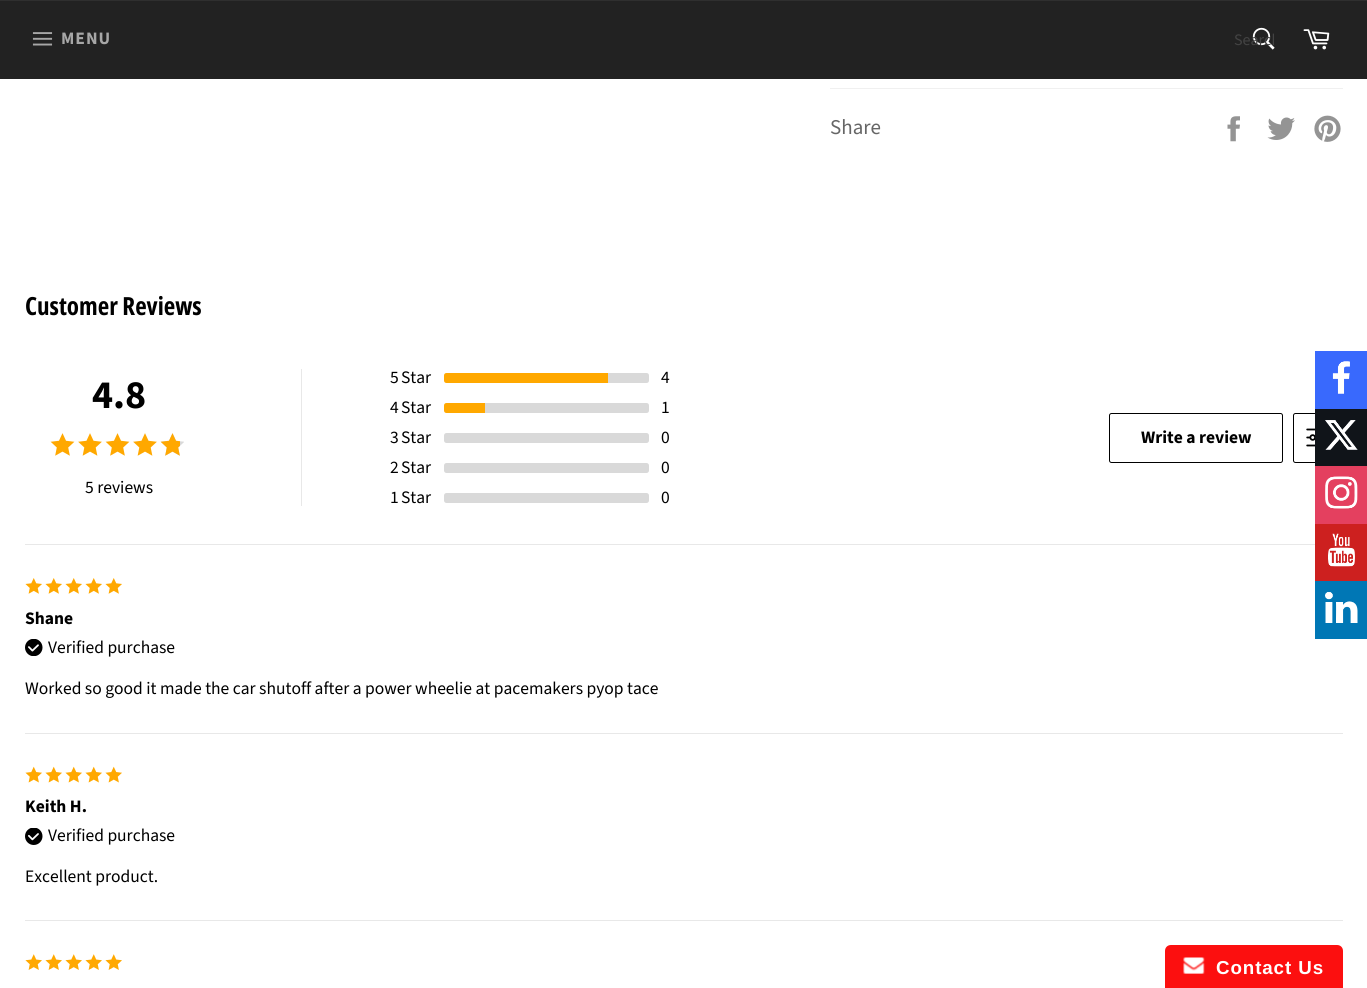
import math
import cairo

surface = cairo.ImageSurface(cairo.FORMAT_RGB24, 1367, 988)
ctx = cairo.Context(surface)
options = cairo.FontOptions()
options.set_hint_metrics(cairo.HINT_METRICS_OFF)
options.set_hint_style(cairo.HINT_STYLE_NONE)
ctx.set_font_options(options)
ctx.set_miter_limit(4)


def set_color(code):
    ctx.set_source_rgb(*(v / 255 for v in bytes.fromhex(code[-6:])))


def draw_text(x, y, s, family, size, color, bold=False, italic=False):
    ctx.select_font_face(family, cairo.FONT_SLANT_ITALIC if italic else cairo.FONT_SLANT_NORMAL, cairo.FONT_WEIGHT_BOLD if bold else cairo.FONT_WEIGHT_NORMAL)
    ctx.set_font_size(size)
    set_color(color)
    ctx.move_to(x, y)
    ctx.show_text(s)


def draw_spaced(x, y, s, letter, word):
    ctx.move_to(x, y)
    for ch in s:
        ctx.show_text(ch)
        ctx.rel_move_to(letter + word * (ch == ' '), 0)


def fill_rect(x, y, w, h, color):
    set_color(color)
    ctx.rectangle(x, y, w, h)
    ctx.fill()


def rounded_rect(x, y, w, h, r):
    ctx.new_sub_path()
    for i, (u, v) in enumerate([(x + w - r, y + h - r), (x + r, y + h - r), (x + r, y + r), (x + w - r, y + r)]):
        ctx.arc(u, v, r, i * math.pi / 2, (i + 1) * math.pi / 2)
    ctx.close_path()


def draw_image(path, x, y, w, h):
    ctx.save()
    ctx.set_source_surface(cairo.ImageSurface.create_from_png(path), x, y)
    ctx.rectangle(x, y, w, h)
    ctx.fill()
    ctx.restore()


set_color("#ffffff")
ctx.paint()
fill_rect(0, 1, 1367, 78, "#222222")
fill_rect(0, 0, 1367, 1, "#2f2f2f")
draw_image("assets/img1.png", 32, 32, 21, 14)
ctx.select_font_face("Source Sans Pro", cairo.FONT_SLANT_NORMAL, cairo.FONT_WEIGHT_BOLD)
ctx.set_font_size(17.5)
set_color("#a7a7a7")
draw_spaced(61, 44, "MENU", 1, 0)
draw_image("assets/img2.png", 1252, 27, 23, 23)
ctx.save()
ctx.rectangle(1234, 29, 40, 22)
ctx.clip()
draw_text(1234, 45, "Search", "Source Sans Pro", 16, "#434343")
ctx.restore()
draw_image("assets/img3.png", 1303, 29, 27, 21)
fill_rect(830, 88, 513, 1, "#f0f0f0")
draw_text(830, 134, "Share", "Source Sans Pro", 21, "#666666")
draw_image("assets/img4.png", 1227, 116, 13, 26)
draw_image("assets/img5.png", 1267, 117, 28, 23)
draw_image("assets/img6.png", 1314, 115, 27, 27)
fill_rect(25, 544, 1290, 1, "#e8e8e8")
draw_text(25, 315, "Customer Reviews", "Open Sans Condensed", 25, "#000000", bold=True)
draw_text(92, 408, "4.8", "Source Sans Pro", 40, "#000000", bold=True)
draw_image("assets/img7.png", 50, 433, 25, 23)
draw_image("assets/img8.png", 78, 433, 24, 23)
draw_image("assets/img7.png", 105, 433, 25, 23)
draw_image("assets/img8.png", 133, 433, 24, 23)
draw_image("assets/img10.png", 161, 433, 23, 23)
draw_image("assets/img9.png", 160, 433, 20, 23)
draw_text(85, 493, "5 reviews", "Source Sans Pro", 17.5, "#000000")
fill_rect(301, 369, 1, 137, "#e8e8e8")
draw_text(390, 383, "5", "Source Sans Pro", 17.5, "#000000")
draw_text(401, 383, "Star", "Source Sans Pro", 17.5, "#000000")
set_color("#ffa800")
ctx.new_path()
ctx.move_to(446.5, 373)
ctx.line_to(608, 373)
ctx.line_to(608, 383)
ctx.line_to(446.5, 383)
ctx.curve_to(445, 383, 444, 382, 444, 380.5)
ctx.line_to(444, 375.5)
ctx.curve_to(444, 374, 445, 373, 446.5, 373)
ctx.close_path()
ctx.fill()
set_color("#d9d9d9")
ctx.new_path()
ctx.move_to(608, 373)
ctx.line_to(646.5, 373)
ctx.curve_to(648, 373, 649, 374, 649, 375.5)
ctx.line_to(649, 380.5)
ctx.curve_to(649, 382, 648, 383, 646.5, 383)
ctx.line_to(608, 383)
ctx.close_path()
ctx.fill()
draw_text(661, 383, "4", "Source Sans Pro", 17.5, "#000000")
draw_text(390, 413, "4", "Source Sans Pro", 17.5, "#000000")
draw_text(401, 413, "Star", "Source Sans Pro", 17.5, "#000000")
set_color("#ffa800")
ctx.new_path()
ctx.move_to(446.5, 403)
ctx.line_to(485, 403)
ctx.line_to(485, 413)
ctx.line_to(446.5, 413)
ctx.curve_to(445, 413, 444, 412, 444, 410.5)
ctx.line_to(444, 405.5)
ctx.curve_to(444, 404, 445, 403, 446.5, 403)
ctx.close_path()
ctx.fill()
set_color("#d9d9d9")
ctx.new_path()
ctx.move_to(485, 403)
ctx.line_to(646.5, 403)
ctx.curve_to(648, 403, 649, 404, 649, 405.5)
ctx.line_to(649, 410.5)
ctx.curve_to(649, 412, 648, 413, 646.5, 413)
ctx.line_to(485, 413)
ctx.close_path()
ctx.fill()
draw_text(661, 413, "1", "Source Sans Pro", 17.5, "#000000")
draw_text(390, 443, "3", "Source Sans Pro", 17.5, "#000000")
draw_text(401, 443, "Star", "Source Sans Pro", 17.5, "#000000")
set_color("#d9d9d9")
rounded_rect(444, 433, 205, 10, 2.5)
ctx.fill()
draw_text(661, 443, "0", "Source Sans Pro", 17.5, "#000000")
draw_text(390, 473, "2", "Source Sans Pro", 17.5, "#000000")
draw_text(401, 473, "Star", "Source Sans Pro", 17.5, "#000000")
set_color("#d9d9d9")
rounded_rect(444, 463, 205, 10, 2.5)
ctx.fill()
draw_text(661, 473, "0", "Source Sans Pro", 17.5, "#000000")
draw_text(390, 503, "1", "Source Sans Pro", 17.5, "#000000")
draw_text(401, 503, "Star", "Source Sans Pro", 17.5, "#000000")
set_color("#d9d9d9")
rounded_rect(444, 493, 205, 10, 2.5)
ctx.fill()
draw_text(661, 503, "0", "Source Sans Pro", 17.5, "#000000")
rounded_rect(1109.5, 413.5, 173, 49, 2)
ctx.set_line_width(1)
ctx.stroke()
draw_text(1141, 443, "Write a review", "Source Sans Pro", 17.5, "#000000", bold=True)
rounded_rect(1293.5, 413.5, 49, 49, 2)
ctx.stroke()
draw_image("assets/img11.png", 1306, 428, 9, 19)
fill_rect(25, 733, 1318, 1, "#e8e8e8")
draw_image("assets/img12.png", 25, 578, 17, 16)
draw_image("assets/img12.png", 45, 578, 17, 16)
draw_image("assets/img12.png", 65, 578, 17, 16)
draw_image("assets/img12.png", 85, 578, 17, 16)
draw_image("assets/img12.png", 105, 578, 17, 16)
draw_text(25, 624, "Shane", "Source Sans Pro", 17.5, "#000000", bold=True)
draw_image("assets/img13.png", 25, 639, 18, 17)
draw_text(48, 653, "Verified purchase", "Source Sans Pro", 17.5, "#000000")
draw_text(25, 694, "Worked so good it made the car shutoff after a power wheelie at pacemakers pyop tace", "Source Sans Pro", 17.5, "#000000")
fill_rect(25, 920, 1318, 1, "#e8e8e8")
draw_image("assets/img14.png", 25, 766, 17, 17)
draw_image("assets/img14.png", 45, 766, 17, 17)
draw_image("assets/img14.png", 65, 766, 17, 17)
draw_image("assets/img14.png", 85, 766, 17, 17)
draw_image("assets/img14.png", 105, 766, 17, 17)
draw_text(25, 812, "Keith H.", "Source Sans Pro", 17.5, "#000000", bold=True)
draw_image("assets/img15.png", 25, 828, 18, 17)
draw_text(48, 841, "Verified purchase", "Source Sans Pro", 17.5, "#000000")
draw_text(25, 882, "Excellent product.", "Source Sans Pro", 17.5, "#000000")
draw_image("assets/img16.png", 25, 954, 17, 16)
draw_image("assets/img16.png", 45, 954, 17, 16)
draw_image("assets/img16.png", 65, 954, 17, 16)
draw_image("assets/img16.png", 85, 954, 17, 16)
draw_image("assets/img16.png", 105, 954, 17, 16)
fill_rect(1315, 351, 52, 58, "#3969fd")
draw_image("assets/img17.png", 1332, 361, 18, 33)
fill_rect(1315, 409, 52, 57, "#101419")
draw_image("assets/img18.png", 1325, 420, 33, 30)
fill_rect(1315, 466, 52, 58, "#e4405f")
draw_image("assets/img19.png", 1325, 476, 33, 33)
fill_rect(1315, 524, 52, 57, "#cd201f")
draw_image("assets/img20.png", 1328, 533, 27, 34)
fill_rect(1315, 581, 52, 58, "#0077b5")
draw_image("assets/img21.png", 1325, 592, 33, 31)
set_color("#fc0f0f")
ctx.new_path()
ctx.move_to(1171, 945)
ctx.line_to(1337, 945)
ctx.curve_to(1340.5, 945, 1343, 947.5, 1343, 951)
ctx.line_to(1343, 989)
ctx.line_to(1165, 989)
ctx.line_to(1165, 951)
ctx.curve_to(1165, 947.5, 1167.5, 945, 1171, 945)
ctx.close_path()
ctx.fill()
draw_image("assets/img22.png", 1183, 957, 22, 17)
ctx.select_font_face("Liberation Sans", cairo.FONT_SLANT_NORMAL, cairo.FONT_WEIGHT_BOLD)
ctx.set_font_size(18.75)
set_color("#ffffff")
draw_spaced(1216, 974, "Contact Us", 0.9, 0)
surface.write_to_png("output.png")
